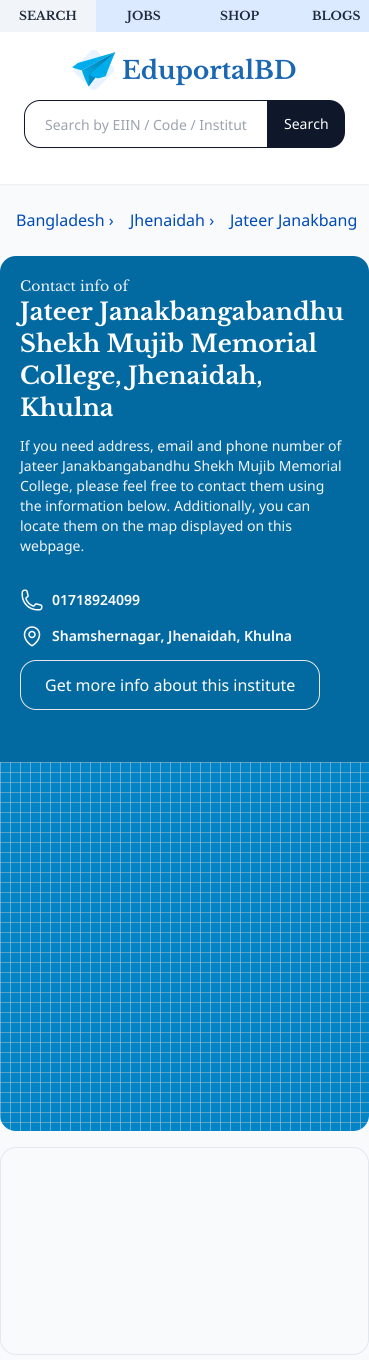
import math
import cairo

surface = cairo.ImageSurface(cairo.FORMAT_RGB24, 369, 1360)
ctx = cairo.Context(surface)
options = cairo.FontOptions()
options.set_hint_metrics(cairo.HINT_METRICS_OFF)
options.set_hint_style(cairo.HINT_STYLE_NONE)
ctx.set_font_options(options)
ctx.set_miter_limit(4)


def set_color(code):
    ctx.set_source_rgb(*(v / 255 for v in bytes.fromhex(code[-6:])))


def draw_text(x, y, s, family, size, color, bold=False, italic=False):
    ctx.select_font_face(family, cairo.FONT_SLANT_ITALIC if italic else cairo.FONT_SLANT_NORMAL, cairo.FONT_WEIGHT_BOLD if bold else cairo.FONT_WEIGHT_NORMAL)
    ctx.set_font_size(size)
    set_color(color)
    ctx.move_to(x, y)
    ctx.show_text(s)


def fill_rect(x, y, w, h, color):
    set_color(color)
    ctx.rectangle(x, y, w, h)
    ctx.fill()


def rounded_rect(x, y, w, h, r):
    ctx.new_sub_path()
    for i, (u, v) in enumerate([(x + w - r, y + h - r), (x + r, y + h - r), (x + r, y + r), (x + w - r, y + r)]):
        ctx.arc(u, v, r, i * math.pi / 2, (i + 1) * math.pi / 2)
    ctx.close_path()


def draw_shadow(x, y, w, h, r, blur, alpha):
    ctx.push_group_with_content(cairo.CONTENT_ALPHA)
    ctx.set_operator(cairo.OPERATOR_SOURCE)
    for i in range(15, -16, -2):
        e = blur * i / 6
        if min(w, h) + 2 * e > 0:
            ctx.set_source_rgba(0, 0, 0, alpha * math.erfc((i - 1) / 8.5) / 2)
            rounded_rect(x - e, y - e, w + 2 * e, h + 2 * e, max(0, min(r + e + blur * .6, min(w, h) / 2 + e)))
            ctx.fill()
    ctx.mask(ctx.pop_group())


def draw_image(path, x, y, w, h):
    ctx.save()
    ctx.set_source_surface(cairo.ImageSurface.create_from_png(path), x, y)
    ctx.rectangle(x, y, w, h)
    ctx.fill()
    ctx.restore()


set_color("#f8fafc")
ctx.paint()
set_color("#000000")
draw_shadow(0, 1, 369, 184, 0, 1, 0.05)
fill_rect(0, 32, 369, 152, "#ffffff")
fill_rect(96, 0, 273, 32, "#dbeafe")
fill_rect(0, 0, 96, 32, "#f1f5f9")
draw_text(19, 20, "SEARCH", "Libre Baskerville", 12, "#1e293b", bold=True)
draw_text(127, 20, "JOBS", "Libre Baskerville", 12, "#1e293b", bold=True)
draw_text(220, 20, "SHOP", "Libre Baskerville", 12, "#1e293b", bold=True)
draw_text(312, 20, "BLOGS", "Libre Baskerville", 12, "#1e293b", bold=True)
draw_image("assets/img1.png", 72, 50, 224, 40)
set_color("#000000")
draw_shadow(24, 101, 244, 48, 16, 1, 0.05)
set_color("#ffffff")
ctx.new_path()
ctx.move_to(40, 100.5)
ctx.line_to(267.5, 100.5)
ctx.line_to(267.5, 147.5)
ctx.line_to(40, 147.5)
ctx.curve_to(31.5, 147.5, 24.5, 140.5, 24.5, 132)
ctx.line_to(24.5, 116)
ctx.curve_to(24.5, 107.5, 31.5, 100.5, 40, 100.5)
ctx.close_path()
ctx.fill_preserve()
set_color("#0f172a")
ctx.set_line_width(1)
ctx.stroke()
draw_text(45, 130, "Search by EIIN / Code / Institut", "Noto Sans", 14, "#9ca3af")
set_color("#0f172a")
ctx.new_path()
ctx.move_to(268, 100)
ctx.line_to(329, 100)
ctx.curve_to(338, 100, 345, 107, 345, 116)
ctx.line_to(345, 132)
ctx.curve_to(345, 141, 338, 148, 329, 148)
ctx.line_to(268, 148)
ctx.close_path()
ctx.fill()
draw_text(284, 129, "Search", "Noto Sans", 14, "#ffffff")
draw_text(16, 226, "Bangladesh ›", "Noto Sans", 16, "#004bb9")
draw_text(130, 226, "Jhenaidah ›", "Noto Sans", 16, "#004bb9")
draw_text(230, 226, "Jateer Janakbang", "Noto Sans", 16, "#004bb9")
set_color("#0369a1")
ctx.new_path()
ctx.move_to(16, 256)
ctx.line_to(353, 256)
ctx.curve_to(362, 256, 369, 263, 369, 272)
ctx.line_to(369, 762)
ctx.line_to(0, 762)
ctx.line_to(0, 272)
ctx.curve_to(0, 263, 7, 256, 16, 256)
ctx.close_path()
ctx.fill()
draw_text(20, 291, "Contact info of", "Libre Baskerville", 14, "#f1f5f9")
draw_text(20, 320, "Jateer Janakbangabandhu", "Libre Baskerville", 24, "#ffffff", bold=True)
draw_text(20, 352, "Shekh Mujib Memorial", "Libre Baskerville", 24, "#ffffff", bold=True)
draw_text(20, 384, "College, Jhenaidah,", "Libre Baskerville", 24, "#ffffff", bold=True)
draw_text(20, 416, "Khulna", "Libre Baskerville", 24, "#ffffff", bold=True)
draw_text(20, 451, "If you need address, email and phone number of", "Noto Sans", 14, "#f1f5f9")
draw_text(20, 471, "Jateer Janakbangabandhu Shekh Mujib Memorial", "Noto Sans", 14, "#f1f5f9")
draw_text(20, 491, "College, please feel free to contact them using", "Noto Sans", 14, "#f1f5f9")
draw_text(20, 511, "the information below. Additionally, you can", "Noto Sans", 14, "#f1f5f9")
draw_text(20, 531, "locate them on the map displayed on this", "Noto Sans", 14, "#f1f5f9")
draw_text(20, 551, "webpage.", "Noto Sans", 14, "#f1f5f9")
draw_image("assets/img2.png", 21, 589, 22, 22)
draw_text(52, 605, "01718924099", "Noto Sans SemiBold", 14, "#ffffff")
draw_image("assets/img3.png", 23, 626, 18, 21)
draw_text(52, 641, "Shamshernagar, Jhenaidah, Khulna", "Noto Sans SemiBold", 14, "#ffffff")
rounded_rect(20.5, 660.5, 299, 49, 15.5)
set_color("#e5e7eb")
ctx.stroke()
draw_text(45, 691, "Get more info about this institute", "Noto Sans", 16, "#ffffff")
set_color("#0284c7")
ctx.new_path()
ctx.move_to(0, 762)
ctx.line_to(369, 762)
ctx.line_to(369, 1115)
ctx.curve_to(369, 1124, 362, 1131, 353, 1131)
ctx.line_to(16, 1131)
ctx.curve_to(7, 1131, 0, 1124, 0, 1115)
ctx.close_path()
ctx.fill()
draw_image("assets/img4.png", 0, 762, 369, 361)
draw_image("assets/img5.png", 0, 762, 361, 369)
rounded_rect(0.5, 1147.5, 368, 207, 15.5)
set_color("#e2e8f0")
ctx.stroke()
surface.write_to_png("output.png")
